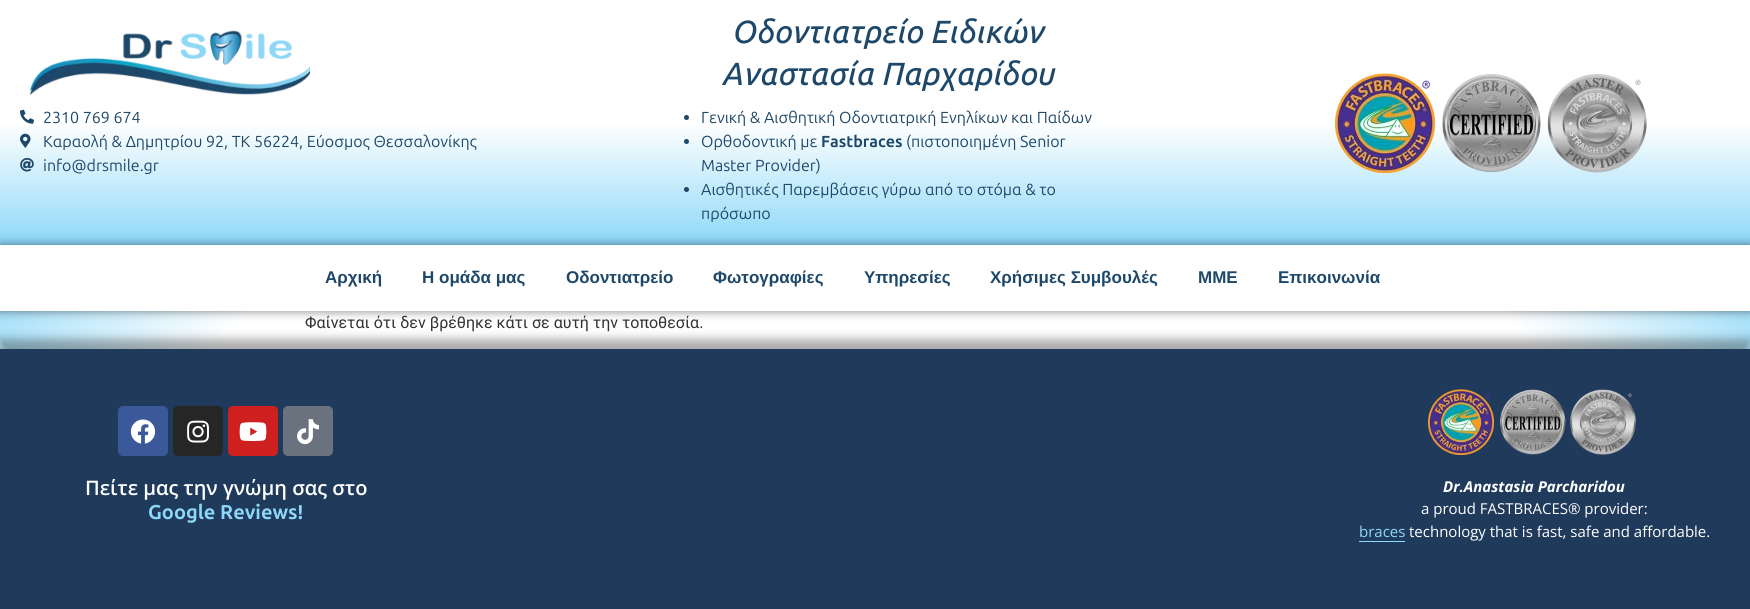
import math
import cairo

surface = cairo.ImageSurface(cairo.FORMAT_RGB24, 1750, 609)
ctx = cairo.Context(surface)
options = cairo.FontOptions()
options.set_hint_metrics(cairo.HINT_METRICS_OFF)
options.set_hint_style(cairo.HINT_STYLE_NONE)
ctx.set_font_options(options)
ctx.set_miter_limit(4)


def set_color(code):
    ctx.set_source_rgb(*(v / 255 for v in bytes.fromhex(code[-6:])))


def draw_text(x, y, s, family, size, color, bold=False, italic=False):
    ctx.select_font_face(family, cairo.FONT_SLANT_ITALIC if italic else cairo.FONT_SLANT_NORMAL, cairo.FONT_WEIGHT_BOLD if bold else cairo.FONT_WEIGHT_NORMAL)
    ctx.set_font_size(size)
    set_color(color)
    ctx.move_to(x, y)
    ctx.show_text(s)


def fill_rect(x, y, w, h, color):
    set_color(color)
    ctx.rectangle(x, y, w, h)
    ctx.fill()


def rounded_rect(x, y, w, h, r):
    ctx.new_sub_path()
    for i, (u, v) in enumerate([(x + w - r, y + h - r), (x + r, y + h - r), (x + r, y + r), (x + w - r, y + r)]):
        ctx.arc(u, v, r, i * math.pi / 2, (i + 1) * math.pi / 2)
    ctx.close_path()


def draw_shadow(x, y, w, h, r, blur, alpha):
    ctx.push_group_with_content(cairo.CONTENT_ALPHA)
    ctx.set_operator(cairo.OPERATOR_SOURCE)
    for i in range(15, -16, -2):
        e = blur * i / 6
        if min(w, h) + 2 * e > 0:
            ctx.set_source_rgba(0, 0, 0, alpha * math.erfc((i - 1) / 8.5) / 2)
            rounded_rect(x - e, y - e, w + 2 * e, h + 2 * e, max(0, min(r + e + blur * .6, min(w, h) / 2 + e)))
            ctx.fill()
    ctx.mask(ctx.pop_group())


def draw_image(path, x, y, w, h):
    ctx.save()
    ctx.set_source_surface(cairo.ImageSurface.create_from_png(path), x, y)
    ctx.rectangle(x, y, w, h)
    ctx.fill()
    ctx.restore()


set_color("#ffffff")
ctx.paint()
gradient = cairo.RadialGradient(0, 0, 0, 0, 0, 1)
gradient.set_matrix(cairo.Matrix(1 / 1237, 0, 0, 1 / 697, -1 * 875 / 1237, -1 * 493 / 697))
gradient.add_color_stop_rgba(0.57, 1, 1, 1, 1)
gradient.add_color_stop_rgba(0.81, 0.553, 0.847, 0.973, 1)
ctx.set_source(gradient)
ctx.rectangle(0, 311, 1750, 38)
ctx.fill()
gradient = cairo.LinearGradient(875, 0, 875, 245)
gradient.add_color_stop_rgba(0.5, 1, 1, 1, 1)
gradient.add_color_stop_rgba(1, 0.553, 0.847, 0.973, 1)
ctx.set_source(gradient)
ctx.rectangle(0, 125, 1750, 120)
ctx.fill()
draw_image("assets/img1.png", 30, 30, 280, 65)
draw_image("assets/img2.png", 20, 109, 14, 15)
draw_text(43, 123, "2310 769 674", "Ubuntu", 16, "#1e4869")
draw_image("assets/img3.png", 20, 133, 11, 15)
draw_text(43, 147, "Καραολή & Δημητρίου 92, ΤΚ 56224, Εύοσμος Θεσσαλονίκης", "Ubuntu", 16, "#1e4869")
draw_image("assets/img4.png", 20, 158, 14, 14)
draw_text(43, 171, "info@drsmile.gr", "Ubuntu", 16, "#1e4869")
draw_text(733, 43, "Οδοντιατρείο Ειδικών", "Ubuntu Medium", 32, "#1e4869", italic=True)
draw_text(723, 85, "Αναστασία Παρχαρίδου", "Ubuntu Medium", 32, "#1e4869", italic=True)
ctx.new_path()
ctx.arc(686.5, 117.5, 2.5, 0, 2 * math.pi)
ctx.fill()
draw_text(701, 123, "Γενική & Αισθητική Οδοντιατρική Ενηλίκων και Παίδων", "Ubuntu", 16, "#1e4869")
ctx.new_path()
ctx.arc(686.5, 141.5, 2.5, 0, 2 * math.pi)
ctx.fill()
draw_text(701, 147, "Ορθοδοντική με", "Ubuntu", 16, "#1e4869")
draw_text(821, 147, "Fastbraces", "Ubuntu", 16, "#1e4869", bold=True)
draw_text(906, 147, "(πιστοποιημένη Senior", "Ubuntu", 16, "#1e4869")
draw_text(701, 171, "Master Provider)", "Ubuntu", 16, "#1e4869")
ctx.new_path()
ctx.arc(686.5, 189.5, 2.5, 0, 2 * math.pi)
ctx.fill()
draw_text(701, 195, "Αισθητικές Παρεμβάσεις γύρω από το στόμα & το", "Ubuntu", 16, "#1e4869")
draw_text(701, 219, "πρόσωπο", "Ubuntu", 16, "#1e4869")
draw_image("assets/img5.png", 1335, 73, 100, 100)
draw_image("assets/img6.png", 1442, 74, 205, 99)
set_color("#000000")
draw_shadow(0, 245, 1750, 66, 0, 5, 0.5)
fill_rect(0, 245, 1750, 66, "#ffffff")
draw_text(325, 283, "Αρχική", "Liberation Sans", 17, "#1e4869", bold=True)
draw_text(422, 283, "Η ομάδα μας", "Liberation Sans", 17, "#1e4869", bold=True)
draw_text(566, 283, "Οδοντιατρείο", "Liberation Sans", 17, "#1e4869", bold=True)
draw_text(713, 283, "Φωτογραφίες", "Liberation Sans", 17, "#1e4869", bold=True)
draw_text(864, 283, "Υπηρεσίες", "Liberation Sans", 17, "#1e4869", bold=True)
draw_text(990, 283, "Χρήσιμες Συμβουλές", "Liberation Sans", 17, "#1e4869", bold=True)
draw_text(1198, 283, "ΜΜΕ", "Liberation Sans", 17, "#1e4869", bold=True)
draw_text(1278, 283, "Επικοινωνία", "Liberation Sans", 17, "#1e4869", bold=True)
draw_text(305, 328, "Φαίνεται ότι δεν βρέθηκε κάτι σε αυτή την τοποθεσία.", "Roboto", 16, "#333333")
set_color("#000000")
draw_shadow(0, 339, 1750, 247, 0, 5, 0.33)
fill_rect(0, 349, 1750, 260, "#203a5b")
set_color("#3b5998")
rounded_rect(118, 406, 50, 50, 5)
ctx.fill()
draw_image("assets/img7.png", 130, 419, 26, 25)
set_color("#262626")
rounded_rect(173, 406, 50, 50, 5)
ctx.fill()
draw_image("assets/img8.png", 187, 420, 22, 23)
set_color("#cd201f")
rounded_rect(228, 406, 50, 50, 5)
ctx.fill()
draw_image("assets/img9.png", 239, 422, 28, 19)
set_color("#69727d")
rounded_rect(283, 406, 50, 50, 5)
ctx.fill()
draw_image("assets/img10.png", 297, 419, 22, 26)
draw_text(85, 495, "Πείτε μας την γνώμη σας στο", "Open Sans SemiBold", 20, "#ffffff")
draw_text(148, 519, "Google Reviews!", "Ubuntu", 20, "#8dd8f8", bold=True)
draw_image("assets/img11.png", 1428, 389, 66, 66)
draw_image("assets/img12.png", 1500, 389, 136, 66)
draw_text(1443, 492, "Dr.Anastasia Parcharidou", "Open Sans", 15, "#ffffff", bold=True, italic=True)
draw_text(1421, 514, "a proud FASTBRACES® provider:", "Open Sans", 15, "#ffffff")
draw_text(1359, 537, "braces", "Open Sans", 15, "#8dd8f8")
fill_rect(1359, 541, 46, 1, "#8dd8f8")
draw_text(1409, 537, "technology that is fast, safe and affordable.", "Open Sans", 15, "#ffffff")
surface.write_to_png("output.png")
